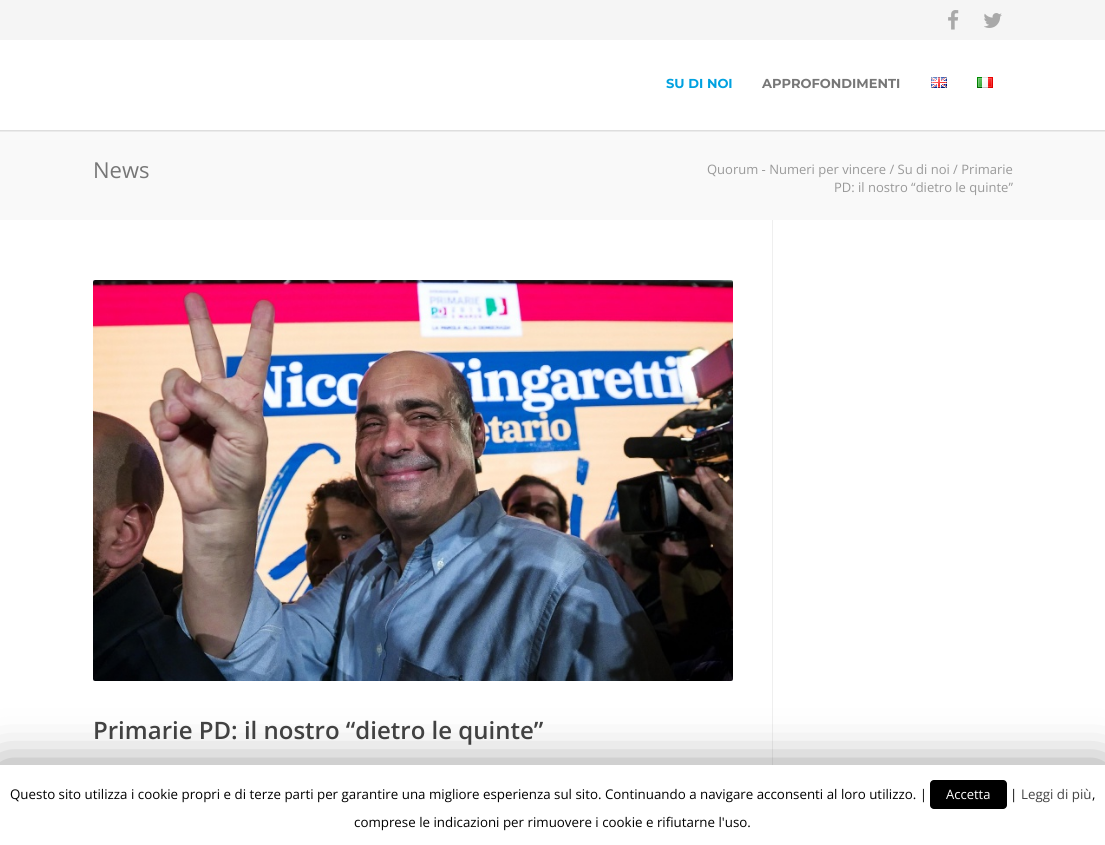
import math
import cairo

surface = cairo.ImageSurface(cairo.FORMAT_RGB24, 1105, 845)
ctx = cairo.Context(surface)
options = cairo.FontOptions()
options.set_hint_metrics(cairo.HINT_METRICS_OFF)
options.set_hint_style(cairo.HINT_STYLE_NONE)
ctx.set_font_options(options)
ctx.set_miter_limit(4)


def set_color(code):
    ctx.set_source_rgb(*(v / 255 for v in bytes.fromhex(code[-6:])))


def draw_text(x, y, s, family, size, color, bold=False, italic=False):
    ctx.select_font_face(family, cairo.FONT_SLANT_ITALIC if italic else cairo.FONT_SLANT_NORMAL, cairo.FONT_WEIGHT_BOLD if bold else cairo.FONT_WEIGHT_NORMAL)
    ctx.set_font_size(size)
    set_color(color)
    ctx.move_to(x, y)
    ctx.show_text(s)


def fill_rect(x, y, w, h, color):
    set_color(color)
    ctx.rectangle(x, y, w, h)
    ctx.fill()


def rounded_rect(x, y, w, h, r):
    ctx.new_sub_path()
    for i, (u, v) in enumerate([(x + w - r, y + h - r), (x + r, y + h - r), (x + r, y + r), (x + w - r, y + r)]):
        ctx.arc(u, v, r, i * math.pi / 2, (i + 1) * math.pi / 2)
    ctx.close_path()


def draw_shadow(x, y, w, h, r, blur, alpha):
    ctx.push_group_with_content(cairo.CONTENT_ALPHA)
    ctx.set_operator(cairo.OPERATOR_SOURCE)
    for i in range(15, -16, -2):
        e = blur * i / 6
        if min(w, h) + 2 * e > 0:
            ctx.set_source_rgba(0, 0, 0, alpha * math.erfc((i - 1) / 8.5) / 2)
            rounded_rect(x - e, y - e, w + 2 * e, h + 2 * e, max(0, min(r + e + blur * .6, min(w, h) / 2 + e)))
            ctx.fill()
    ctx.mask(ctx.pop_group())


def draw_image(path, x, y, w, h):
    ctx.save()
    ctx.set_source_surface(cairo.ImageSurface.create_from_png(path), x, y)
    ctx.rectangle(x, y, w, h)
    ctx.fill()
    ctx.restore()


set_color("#ffffff")
ctx.paint()
fill_rect(0, 130, 1105, 90, "#f9f9f9")
ctx.save()
ctx.rectangle(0, 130, 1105, 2)
ctx.clip()
set_color("#000000")
draw_shadow(-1, 39, 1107, 92, 0, 1, 0.16)
ctx.restore()
fill_rect(0, 0, 1105, 40, "#f5f5f5")
draw_image("assets/img1.png", 948, 10, 11, 20)
draw_image("assets/img2.png", 984, 13, 18, 15)
draw_text(666, 88, "SU DI NOI", "Montserrat", 13, "#00a1e0", bold=True)
draw_text(762, 88, "APPROFONDIMENTI", "Montserrat", 13, "#777777", bold=True)
draw_image("assets/img3.png", 931, 77, 16, 11)
draw_image("assets/img4.png", 977, 77, 16, 11)
draw_text(93, 178, "News", "Open Sans", 22, "#777777")
draw_text(707, 174, "Quorum - Numeri per vincere / Su di noi / Primarie", "Open Sans", 13, "#999999")
draw_text(834, 192, "PD: il nostro “dietro le quinte”", "Open Sans", 13, "#999999")
fill_rect(772, 220, 1, 545, "#efefef")
draw_image("assets/img5.png", 93, 280, 640, 401)
draw_text(93, 739, "Primarie PD: il nostro “dietro le quinte”", "Open Sans SemiBold", 24, "#444444")
set_color("#000000")
draw_shadow(0, 770, 1105, 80, 0, 25, 0.5)
fill_rect(0, 765, 1105, 80, "#ffffff")
draw_text(10, 799, "Questo sito utilizza i cookie propri e di terze parti per garantire una migliore esperienza sul sito. Continuando a navigare acconsenti al loro utilizzo. |", "Open Sans", 13.33, "#000000")
rounded_rect(930, 780, 77, 29, 4)
ctx.fill()
draw_text(946, 799, "Accetta", "Open Sans", 13, "#ffffff")
draw_text(1010, 799, "|", "Open Sans", 13.33, "#000000")
draw_text(1021, 799, "Leggi di più", "Open Sans", 13.33, "#444444")
draw_text(1092, 799, ",", "Open Sans", 13.33, "#000000")
draw_text(354, 827, "comprese le indicazioni per rimuovere i cookie e rifiutarne l'uso.", "Open Sans", 13.33, "#000000")
surface.write_to_png("output.png")
